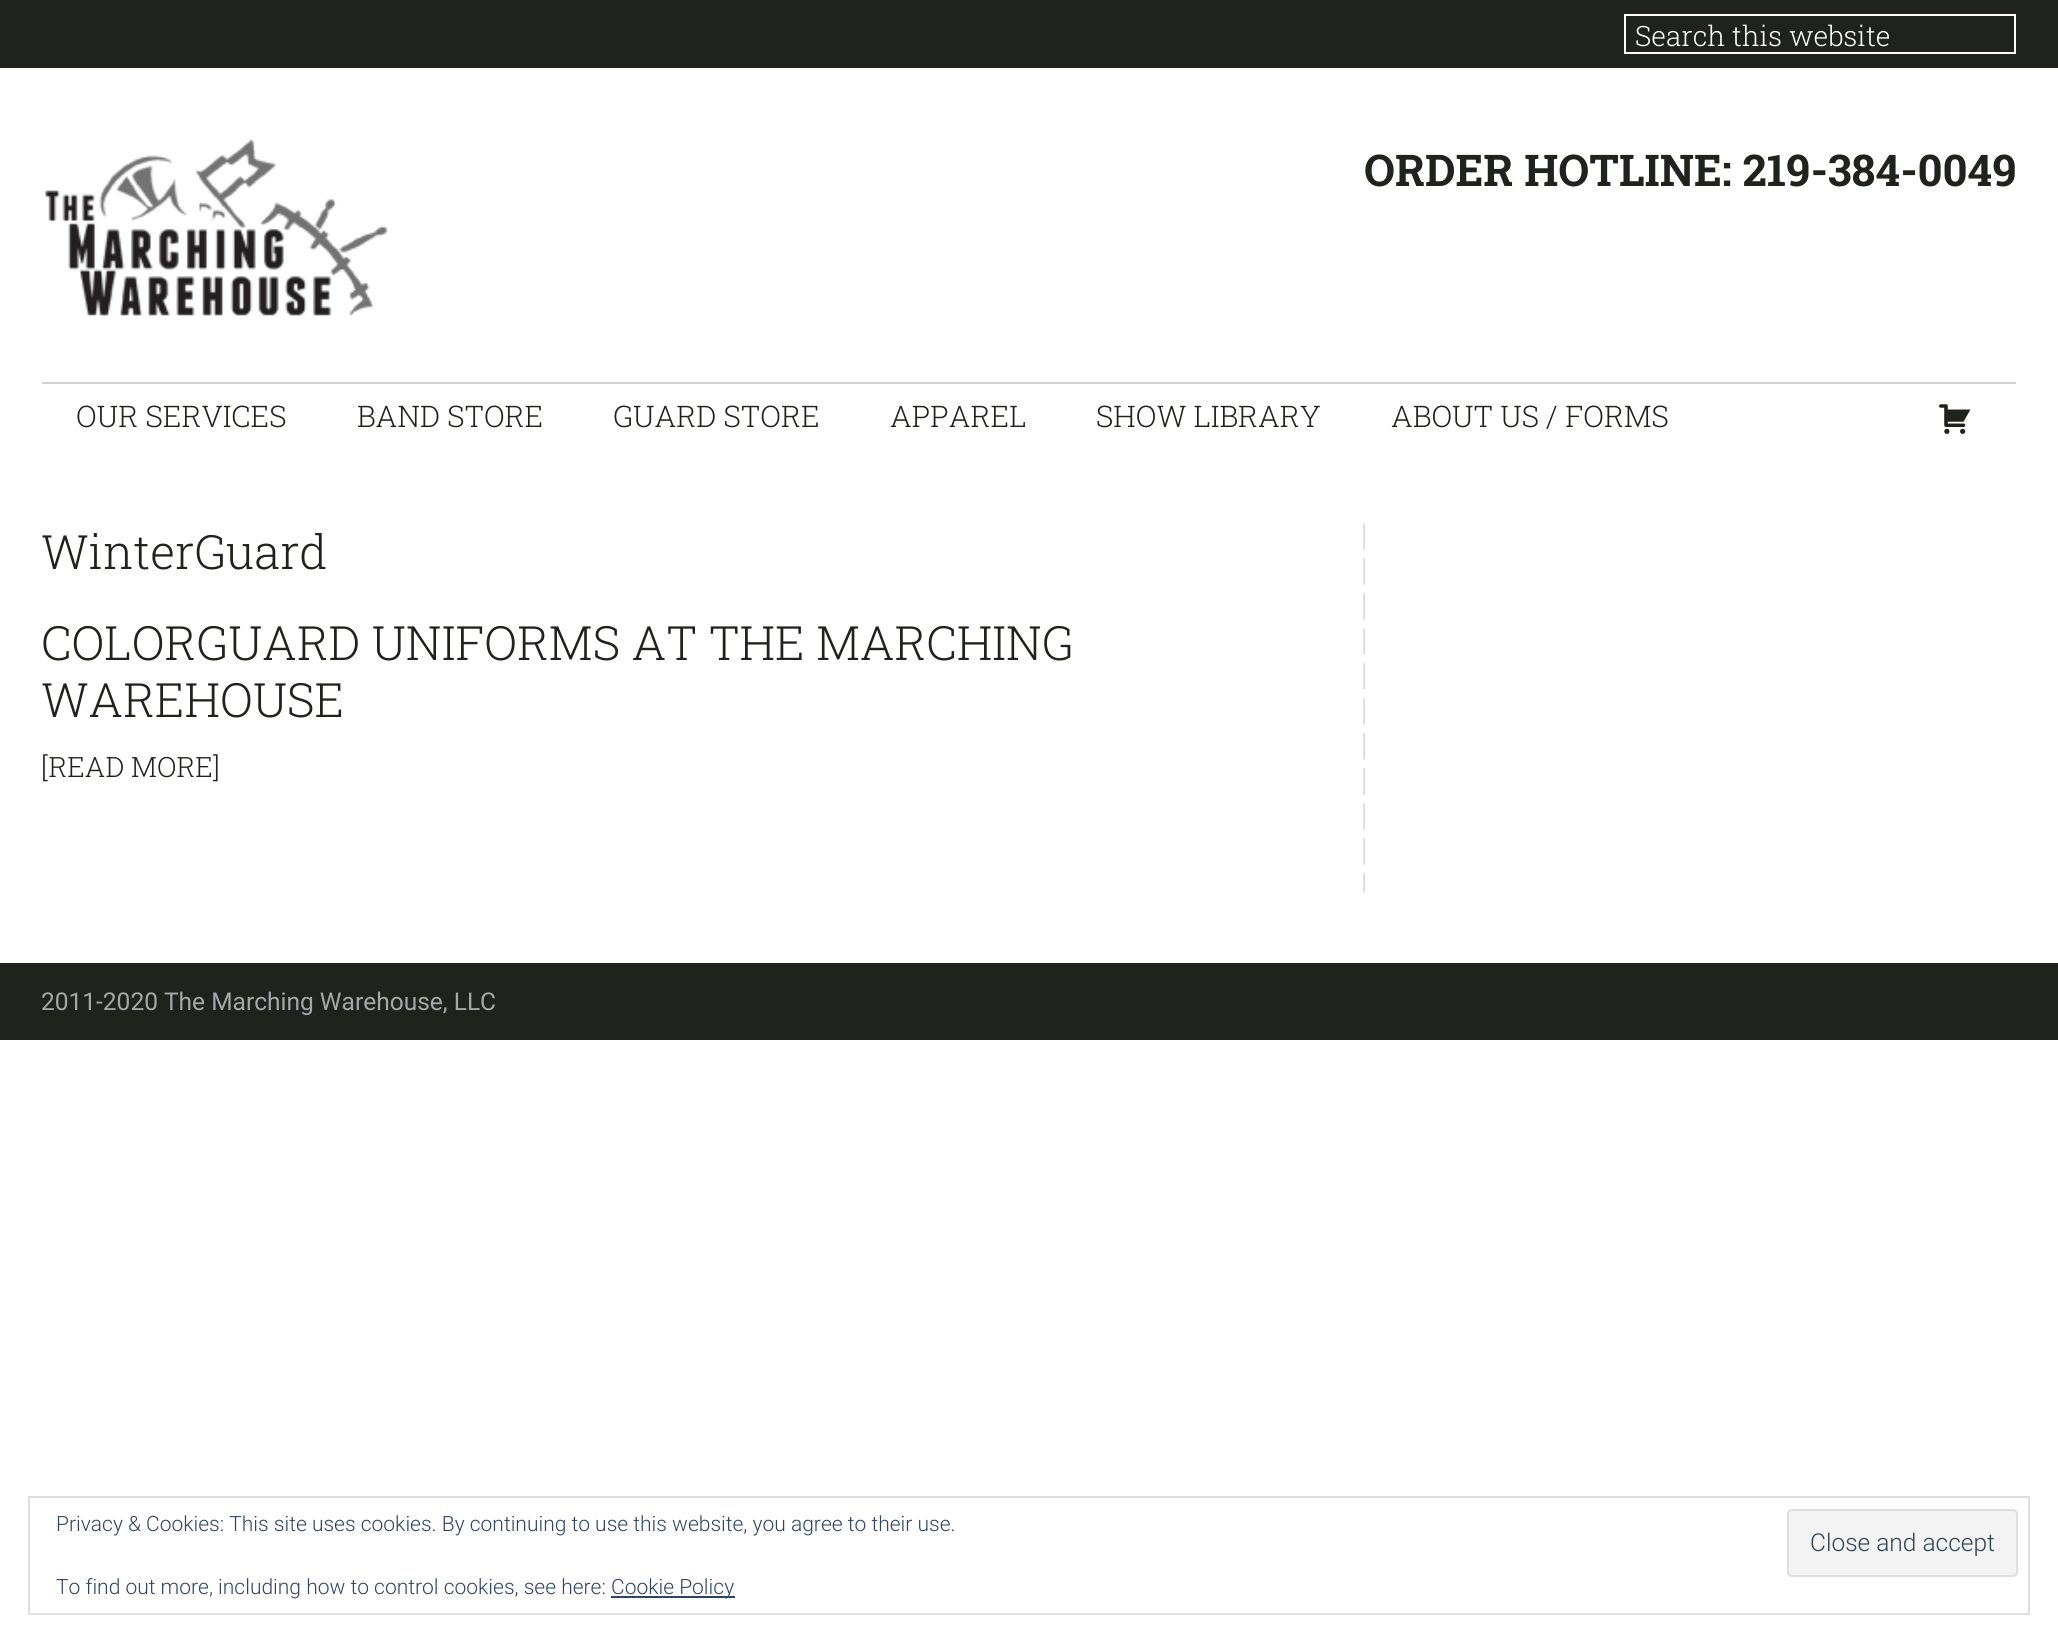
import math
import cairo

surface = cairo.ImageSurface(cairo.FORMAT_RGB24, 2058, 1642)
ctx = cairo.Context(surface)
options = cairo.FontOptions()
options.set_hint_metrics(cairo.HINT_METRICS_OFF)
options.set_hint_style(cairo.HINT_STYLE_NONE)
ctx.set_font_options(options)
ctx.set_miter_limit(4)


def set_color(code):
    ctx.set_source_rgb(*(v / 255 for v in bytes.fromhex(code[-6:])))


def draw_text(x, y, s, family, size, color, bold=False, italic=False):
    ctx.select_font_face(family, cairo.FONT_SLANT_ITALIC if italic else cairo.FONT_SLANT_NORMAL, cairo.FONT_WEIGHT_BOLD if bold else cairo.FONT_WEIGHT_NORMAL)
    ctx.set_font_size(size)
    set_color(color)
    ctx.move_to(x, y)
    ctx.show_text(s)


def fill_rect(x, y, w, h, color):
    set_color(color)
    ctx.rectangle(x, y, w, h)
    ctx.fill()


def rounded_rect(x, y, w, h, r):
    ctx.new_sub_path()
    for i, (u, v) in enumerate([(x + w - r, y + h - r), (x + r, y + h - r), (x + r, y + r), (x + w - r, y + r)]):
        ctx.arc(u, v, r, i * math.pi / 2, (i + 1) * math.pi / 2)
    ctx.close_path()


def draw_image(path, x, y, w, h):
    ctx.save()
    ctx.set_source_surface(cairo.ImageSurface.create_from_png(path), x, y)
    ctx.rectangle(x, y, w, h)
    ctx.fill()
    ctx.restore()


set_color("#ffffff")
ctx.paint()
fill_rect(0, 0, 2058, 68, "#20221d")
ctx.rectangle(1625, 15, 390, 38)
set_color("#ffffff")
ctx.stroke()
draw_text(1635, 46, "Search this website", "Roboto Slab Light", 28, "#ffffff")
draw_image("assets/img1.png", 45, 139, 343, 177)
draw_text(1364, 186, "ORDER HOTLINE: 219-384-0049", "Roboto Slab", 43.75, "#20221d", bold=True)
fill_rect(42, 382, 1974, 2, "#cdd1d2")
draw_text(76, 427, "OUR SERVICES", "Roboto Slab Light", 29.75, "#20221d")
draw_text(357, 427, "BAND STORE", "Roboto Slab Light", 29.75, "#20221d")
draw_text(613, 427, "GUARD STORE", "Roboto Slab Light", 29.75, "#20221d")
draw_text(890, 427, "APPAREL", "Roboto Slab Light", 29.75, "#20221d")
draw_text(1096, 427, "SHOW LIBRARY", "Roboto Slab Light", 29.75, "#20221d")
draw_text(1391, 427, "ABOUT US / FORMS", "Roboto Slab Light", 29.75, "#20221d")
draw_image("assets/img2.png", 1939, 404, 32, 30)
draw_image("assets/img3.png", 1363, 523, 2, 370)
draw_text(41, 569, "WinterGuard", "Roboto Slab Light", 47.25, "#20221d")
draw_text(41, 660, "COLORGUARD UNIFORMS AT THE MARCHING", "Roboto Slab Light", 47.25, "#20221d")
draw_text(41, 717, "WAREHOUSE", "Roboto Slab Light", 47.25, "#20221d")
draw_text(41, 777, "[READ MORE]", "Roboto Slab Light", 28, "#20221d")
fill_rect(0, 963, 2058, 77, "#20221d")
draw_text(41, 1010, "2011-2020 The Marching Warehouse, LLC", "Roboto", 24.5, "#a3a9aa")
ctx.rectangle(29, 1497, 2000, 117)
set_color("#dedede")
ctx.stroke()
draw_text(56, 1531, "Privacy & Cookies: This site uses cookies. By continuing to use this website, you agree to their use.", "Roboto Light", 21, "#2e4467")
set_color("#f3f3f3")
rounded_rect(1788, 1510, 229, 66, 4)
ctx.fill_preserve()
set_color("#dedede")
ctx.stroke()
draw_text(1810, 1551, "Close and accept", "Roboto Light", 24.5, "#2e4453")
draw_text(56, 1594, "To find out more, including how to control cookies, see here:", "Roboto Light", 21, "#2e4467")
fill_rect(611, 1596, 124, 2, "#2e4467")
draw_text(611, 1594, "Cookie Policy", "Roboto Light", 21, "#2e4467")
surface.write_to_png("output.png")
